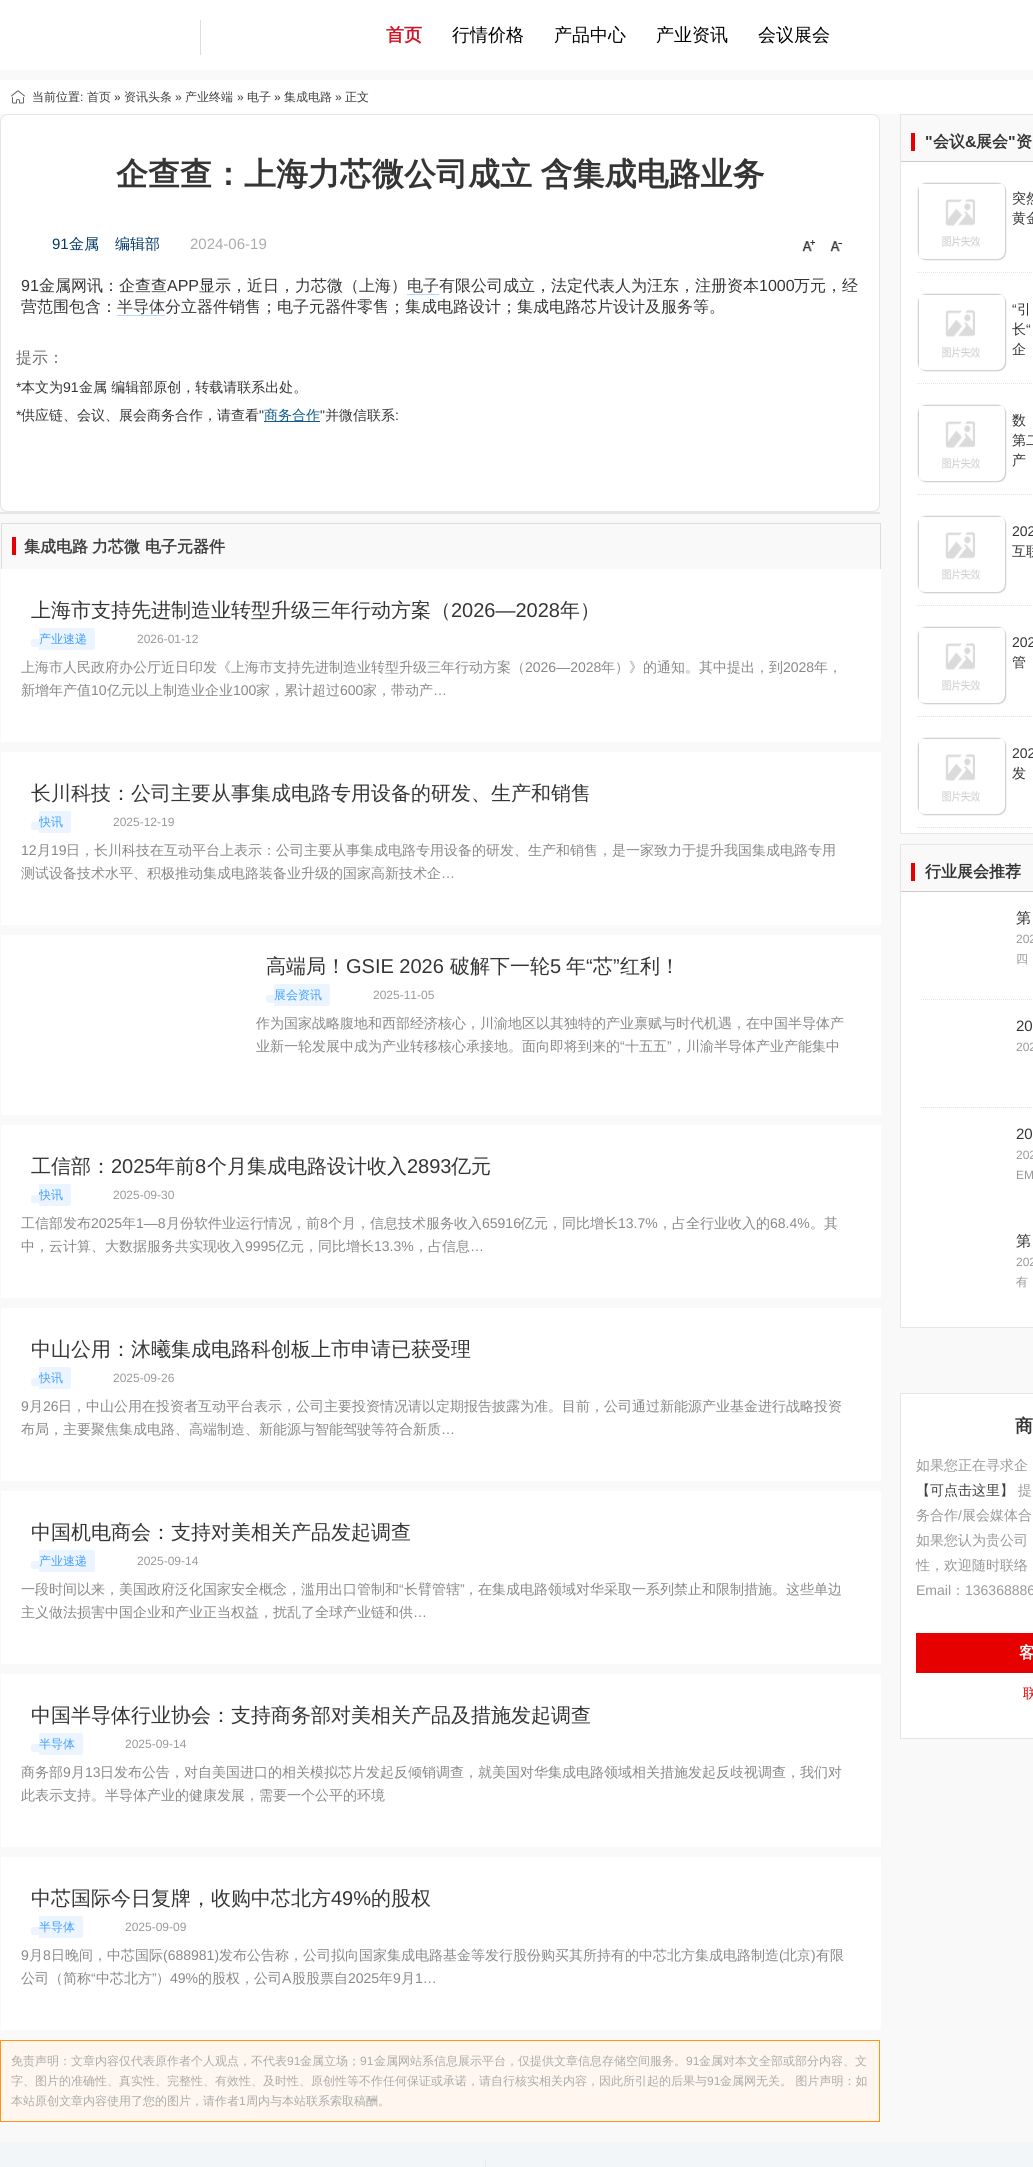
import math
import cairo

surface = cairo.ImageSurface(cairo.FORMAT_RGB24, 1033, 2167)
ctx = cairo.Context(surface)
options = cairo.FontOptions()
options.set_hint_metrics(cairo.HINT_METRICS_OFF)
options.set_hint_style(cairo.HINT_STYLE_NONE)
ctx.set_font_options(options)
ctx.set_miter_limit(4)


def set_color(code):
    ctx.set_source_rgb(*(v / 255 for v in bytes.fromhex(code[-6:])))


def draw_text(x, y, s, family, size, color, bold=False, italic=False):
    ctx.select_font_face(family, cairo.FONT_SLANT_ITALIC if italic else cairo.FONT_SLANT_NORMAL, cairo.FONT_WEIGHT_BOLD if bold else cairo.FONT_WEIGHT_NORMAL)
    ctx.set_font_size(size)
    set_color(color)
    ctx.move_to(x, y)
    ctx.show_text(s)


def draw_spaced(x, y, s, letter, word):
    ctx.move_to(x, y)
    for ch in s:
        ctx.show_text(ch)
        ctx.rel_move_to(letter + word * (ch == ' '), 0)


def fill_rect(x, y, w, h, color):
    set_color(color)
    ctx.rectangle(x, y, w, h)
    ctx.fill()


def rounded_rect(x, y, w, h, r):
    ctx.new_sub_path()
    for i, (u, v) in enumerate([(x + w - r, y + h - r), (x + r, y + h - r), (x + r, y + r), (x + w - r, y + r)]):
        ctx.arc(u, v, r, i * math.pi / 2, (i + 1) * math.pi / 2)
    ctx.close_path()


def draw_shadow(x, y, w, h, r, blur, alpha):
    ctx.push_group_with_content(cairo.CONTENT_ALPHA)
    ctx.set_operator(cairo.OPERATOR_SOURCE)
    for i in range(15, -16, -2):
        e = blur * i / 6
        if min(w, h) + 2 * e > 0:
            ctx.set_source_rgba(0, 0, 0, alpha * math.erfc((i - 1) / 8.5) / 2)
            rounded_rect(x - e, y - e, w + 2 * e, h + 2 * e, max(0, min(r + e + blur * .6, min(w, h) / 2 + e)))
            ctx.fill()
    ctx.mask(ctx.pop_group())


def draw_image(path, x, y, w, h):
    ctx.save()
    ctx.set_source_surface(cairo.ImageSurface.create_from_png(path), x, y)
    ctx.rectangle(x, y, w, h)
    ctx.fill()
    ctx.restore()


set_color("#f9f9f9")
ctx.paint()
fill_rect(0, 0, 1033, 70, "#ffffff")
fill_rect(200, 20, 1, 35, "#dddddd")
draw_text(386, 41, "首页", "WenQuanYi Zen Hei", 18, "#cf1526", bold=True)
draw_text(452, 41, "行情价格", "WenQuanYi Zen Hei Medium", 18, "#000000")
draw_text(554, 41, "产品中心", "WenQuanYi Zen Hei Medium", 18, "#000000")
draw_text(656, 41, "产业资讯", "WenQuanYi Zen Hei Medium", 18, "#000000")
draw_text(758, 41, "会议展会", "WenQuanYi Zen Hei Medium", 18, "#000000")
fill_rect(0, 80, 1033, 34, "#ffffff")
draw_image("assets/img1.png", 11, 90, 14, 14)
draw_text(32, 101, "当前位置", "WenQuanYi Zen Hei Medium", 12, "#353535")
draw_text(80, 101, ":", "Liberation Sans", 12, "#353535")
draw_text(87, 101, "首页", "WenQuanYi Zen Hei Medium", 12, "#404040")
draw_text(114, 101, "»", "Liberation Sans", 12, "#353535")
draw_text(124, 101, "资讯头条", "WenQuanYi Zen Hei Medium", 12, "#404040")
draw_text(175, 101, "»", "Liberation Sans", 12, "#353535")
draw_text(185, 101, "产业终端", "WenQuanYi Zen Hei Medium", 12, "#404040")
draw_text(237, 101, "»", "Liberation Sans", 12, "#353535")
draw_text(247, 101, "电子", "WenQuanYi Zen Hei Medium", 12, "#404040")
draw_text(274, 101, "»", "Liberation Sans", 12, "#353535")
draw_text(284, 101, "集成电路", "WenQuanYi Zen Hei Medium", 12, "#404040")
draw_text(335, 101, "»", "Liberation Sans", 12, "#353535")
draw_text(345, 101, "正文", "WenQuanYi Zen Hei Medium", 12, "#353535")
set_color("#ffffff")
rounded_rect(0.5, 114.5, 879, 397, 7.5)
ctx.fill_preserve()
set_color("#e5e5e5")
ctx.set_line_width(1)
ctx.stroke()
ctx.select_font_face("WenQuanYi Zen Hei", cairo.FONT_SLANT_NORMAL, cairo.FONT_WEIGHT_BOLD)
ctx.set_font_size(32)
set_color("#353535")
draw_spaced(116, 185, "企查查：上海力芯微公司成立 含集成电路业务", 0, -1)
draw_text(52, 249, "91", "Liberation Sans", 15, "#01396a")
draw_text(69, 249, "金属", "WenQuanYi Zen Hei Medium", 15, "#01396a")
draw_text(115, 249, "编辑部", "WenQuanYi Zen Hei Medium", 15, "#01396a")
draw_text(190, 249, "2024-06-19", "Liberation Sans", 15, "#ababab")
draw_image("assets/img2.png", 802, 240, 14, 12)
draw_image("assets/img3.png", 830, 241, 13, 11)
draw_text(21, 291, "91", "Liberation Sans", 16, "#353535")
draw_text(39, 291, "金属网讯：企查查", "WenQuanYi Zen Hei Medium", 16, "#353535")
draw_text(167, 291, "APP", "Liberation Sans", 16, "#353535")
draw_text(199, 291, "显示，近日，力芯微（上海）", "WenQuanYi Zen Hei Medium", 16, "#353535")
draw_text(407, 291, "电子", "WenQuanYi Zen Hei Medium", 16, "#404040")
draw_text(439, 291, "有限公司成立，法定代表人为汪东，注册资本", "WenQuanYi Zen Hei Medium", 16, "#353535")
fill_rect(407, 294, 32, 1, "#b3d7ff")
draw_text(759, 291, "1000", "Liberation Sans", 16, "#353535")
draw_text(794, 291, "万元，经", "WenQuanYi Zen Hei Medium", 16, "#353535")
draw_text(21, 312, "营范围包含：", "WenQuanYi Zen Hei Medium", 16, "#353535")
draw_text(117, 312, "半导体", "WenQuanYi Zen Hei Medium", 16, "#404040")
fill_rect(117, 315, 48, 1, "#b3d7ff")
draw_text(165, 312, "分立器件销售；电子元器件零售；集成电路设计；集成电路芯片设计及服务等。", "WenQuanYi Zen Hei Medium", 16, "#353535")
draw_text(16, 363, "提示：", "WenQuanYi Zen Hei Medium", 16, "#6b6b6b")
draw_text(16, 392, "*", "Liberation Sans", 14, "#353535")
draw_text(21, 392, "本文为", "WenQuanYi Zen Hei Medium", 14, "#353535")
draw_text(63, 392, "91", "Liberation Sans", 14, "#353535")
draw_text(79, 392, "金属 编辑部原创，转载请联系出处。", "WenQuanYi Zen Hei Medium", 14, "#353535")
draw_text(16, 420, "*", "Liberation Sans", 14, "#353535")
draw_text(21, 420, "供应链、会议、展会商务合作，请查看", "WenQuanYi Zen Hei Medium", 14, "#353535")
draw_text(259, 420, "\"", "Liberation Sans", 14, "#353535")
fill_rect(264, 421, 56, 1, "#105b89")
draw_text(264, 420, "商务合作", "WenQuanYi Zen Hei Medium", 14, "#105b89")
draw_text(320, 420, "\"", "Liberation Sans", 14, "#353535")
draw_text(325, 420, "并微信联系", "WenQuanYi Zen Hei Medium", 14, "#353535")
draw_text(395, 420, ":", "Liberation Sans", 14, "#353535")
fill_rect(0, 512, 880, 2, "#e5e5e5")
fill_rect(1, 523, 880, 1, "#dddddd")
fill_rect(880, 523, 1, 46, "#dddddd")
fill_rect(1, 523, 1, 46, "#dddddd")
fill_rect(12, 537, 4, 18, "#e60000")
draw_text(24, 552, "集成电路", "WenQuanYi Zen Hei", 16, "#404040", bold=True)
draw_text(92, 552, "力芯微", "WenQuanYi Zen Hei", 16, "#404040", bold=True)
draw_text(145, 552, "电子元器件", "WenQuanYi Zen Hei", 16, "#404040", bold=True)
fill_rect(1, 569, 880, 173, "#ffffff")
draw_text(31, 617, "上海市支持先进制造业转型升级三年行动方案（", "WenQuanYi Zen Hei Medium", 20, "#353535")
draw_text(451, 617, "2026—2028", "Liberation Sans", 20, "#353535")
draw_text(560, 617, "年）", "WenQuanYi Zen Hei Medium", 20, "#353535")
set_color("#ecf5ff")
ctx.new_path()
ctx.move_to(39, 628)
ctx.line_to(93, 628)
ctx.curve_to(94, 628, 95, 629, 95, 630)
ctx.line_to(95, 648)
ctx.curve_to(95, 649, 94, 650, 93, 650)
ctx.line_to(39, 650)
ctx.close_path()
ctx.fill()
draw_text(39, 643, "产业速递", "WenQuanYi Zen Hei Medium", 12, "#409eff")
set_color("#ecf5ff")
ctx.new_path()
ctx.move_to(33, 639)
ctx.line_to(39, 639)
ctx.line_to(39, 647)
ctx.line_to(33, 647)
ctx.curve_to(32, 647, 31, 646, 31, 645)
ctx.line_to(31, 641)
ctx.curve_to(31, 640, 32, 639, 33, 639)
ctx.close_path()
ctx.fill()
draw_text(137, 643, "2026-01-12", "Liberation Sans", 12, "#999999")
draw_text(21, 672, "上海市人民政府办公厅近日印发《上海市支持先进制造业转型升级三年行动方案（", "WenQuanYi Zen Hei Medium", 14, "#888888")
draw_text(525, 672, "2026—2028", "Liberation Sans", 14, "#888888")
draw_text(601, 672, "年）》的通知。其中提出，到", "WenQuanYi Zen Hei Medium", 14, "#888888")
draw_text(783, 672, "2028", "Liberation Sans", 14, "#888888")
draw_text(814, 672, "年，", "WenQuanYi Zen Hei Medium", 14, "#888888")
draw_text(21, 695, "新增年产值", "WenQuanYi Zen Hei Medium", 14, "#888888")
draw_text(91, 695, "10", "Liberation Sans", 14, "#888888")
draw_text(107, 695, "亿元以上制造业企业", "WenQuanYi Zen Hei Medium", 14, "#888888")
draw_text(233, 695, "100", "Liberation Sans", 14, "#888888")
draw_text(256, 695, "家，累计超过", "WenQuanYi Zen Hei Medium", 14, "#888888")
draw_text(340, 695, "600", "Liberation Sans", 14, "#888888")
draw_text(363, 695, "家，带动产", "WenQuanYi Zen Hei Medium", 14, "#888888")
draw_text(433, 695, "…", "Liberation Sans", 14, "#888888")
fill_rect(1, 752, 880, 173, "#ffffff")
draw_text(31, 800, "长川科技：公司主要从事集成电路专用设备的研发、生产和销售", "WenQuanYi Zen Hei Medium", 20, "#353535")
set_color("#ecf5ff")
ctx.new_path()
ctx.move_to(33, 822)
ctx.line_to(39, 822)
ctx.line_to(39, 830)
ctx.line_to(33, 830)
ctx.curve_to(32, 830, 31, 829, 31, 828)
ctx.line_to(31, 824)
ctx.curve_to(31, 823, 32, 822, 33, 822)
ctx.close_path()
ctx.fill()
ctx.new_path()
ctx.move_to(39, 811)
ctx.line_to(69, 811)
ctx.curve_to(70, 811, 71, 812, 71, 813)
ctx.line_to(71, 831)
ctx.curve_to(71, 832, 70, 833, 69, 833)
ctx.line_to(39, 833)
ctx.close_path()
ctx.fill()
draw_text(39, 826, "快讯", "WenQuanYi Zen Hei Medium", 12, "#409eff")
draw_text(113, 826, "2025-12-19", "Liberation Sans", 12, "#999999")
draw_text(21, 855, "12", "Liberation Sans", 14, "#888888")
draw_text(37, 855, "月", "WenQuanYi Zen Hei Medium", 14, "#888888")
draw_text(51, 855, "19", "Liberation Sans", 14, "#888888")
draw_text(66, 855, "日，长川科技在互动平台上表示：公司主要从事集成电路专用设备的研发、生产和销售，是一家致力于提升我国集成电路专用", "WenQuanYi Zen Hei Medium", 14, "#888888")
draw_text(21, 878, "测试设备技术水平、积极推动集成电路装备业升级的国家高新技术企", "WenQuanYi Zen Hei Medium", 14, "#888888")
draw_text(441, 878, "…", "Liberation Sans", 14, "#888888")
fill_rect(1, 935, 880, 180, "#ffffff")
draw_text(266, 973, "高端局！", "WenQuanYi Zen Hei Medium", 20, "#353535")
draw_text(346, 973, "GSIE 2026", "Liberation Sans", 20, "#353535")
draw_text(450, 973, "破解下一轮", "WenQuanYi Zen Hei Medium", 20, "#353535")
draw_text(550, 973, "5", "Liberation Sans", 20, "#353535")
draw_text(566, 973, "年", "WenQuanYi Zen Hei Medium", 20, "#353535")
draw_text(586, 973, "“", "Liberation Sans", 20, "#353535")
draw_text(593, 973, "芯", "WenQuanYi Zen Hei Medium", 20, "#353535")
draw_text(613, 973, "”", "Liberation Sans", 20, "#353535")
draw_text(620, 973, "红利！", "WenQuanYi Zen Hei Medium", 20, "#353535")
set_color("#ecf5ff")
ctx.new_path()
ctx.move_to(274, 984)
ctx.line_to(328, 984)
ctx.curve_to(329, 984, 330, 985, 330, 986)
ctx.line_to(330, 1004)
ctx.curve_to(330, 1005, 329, 1006, 328, 1006)
ctx.line_to(274, 1006)
ctx.close_path()
ctx.fill()
draw_text(274, 999, "展会资讯", "WenQuanYi Zen Hei Medium", 12, "#409eff")
set_color("#ecf5ff")
ctx.new_path()
ctx.move_to(268, 995)
ctx.line_to(274, 995)
ctx.line_to(274, 1003)
ctx.line_to(268, 1003)
ctx.curve_to(267, 1003, 266, 1002, 266, 1001)
ctx.line_to(266, 997)
ctx.curve_to(266, 996, 267, 995, 268, 995)
ctx.close_path()
ctx.fill()
draw_text(373, 999, "2025-11-05", "Liberation Sans", 12, "#999999")
draw_text(256, 1028, "作为国家战略腹地和西部经济核心，川渝地区以其独特的产业禀赋与时代机遇，在中国半导体产", "WenQuanYi Zen Hei Medium", 14, "#888888")
draw_text(256, 1051, "业新一轮发展中成为产业转移核心承接地。面向即将到来的", "WenQuanYi Zen Hei Medium", 14, "#888888")
draw_text(620, 1051, "“", "Liberation Sans", 14, "#888888")
draw_text(625, 1051, "十五五", "WenQuanYi Zen Hei Medium", 14, "#888888")
draw_text(667, 1051, "”", "Liberation Sans", 14, "#888888")
draw_text(672, 1051, "，川渝半导体产业产能集中", "WenQuanYi Zen Hei Medium", 14, "#888888")
fill_rect(1, 1125, 880, 173, "#ffffff")
draw_text(31, 1173, "工信部：", "WenQuanYi Zen Hei Medium", 20, "#353535")
draw_text(111, 1173, "2025", "Liberation Sans", 20, "#353535")
draw_text(155, 1173, "年前", "WenQuanYi Zen Hei Medium", 20, "#353535")
draw_text(195, 1173, "8", "Liberation Sans", 20, "#353535")
draw_text(207, 1173, "个月集成电路设计收入", "WenQuanYi Zen Hei Medium", 20, "#353535")
draw_text(407, 1173, "2893", "Liberation Sans", 20, "#353535")
draw_text(451, 1173, "亿元", "WenQuanYi Zen Hei Medium", 20, "#353535")
set_color("#ecf5ff")
ctx.new_path()
ctx.move_to(33, 1195)
ctx.line_to(39, 1195)
ctx.line_to(39, 1203)
ctx.line_to(33, 1203)
ctx.curve_to(32, 1203, 31, 1202, 31, 1201)
ctx.line_to(31, 1197)
ctx.curve_to(31, 1196, 32, 1195, 33, 1195)
ctx.close_path()
ctx.fill()
ctx.new_path()
ctx.move_to(39, 1184)
ctx.line_to(69, 1184)
ctx.curve_to(70, 1184, 71, 1185, 71, 1186)
ctx.line_to(71, 1204)
ctx.curve_to(71, 1205, 70, 1206, 69, 1206)
ctx.line_to(39, 1206)
ctx.close_path()
ctx.fill()
draw_text(39, 1199, "快讯", "WenQuanYi Zen Hei Medium", 12, "#409eff")
draw_text(113, 1199, "2025-09-30", "Liberation Sans", 12, "#999999")
draw_text(21, 1228, "工信部发布", "WenQuanYi Zen Hei Medium", 14, "#888888")
draw_text(91, 1228, "2025", "Liberation Sans", 14, "#888888")
draw_text(122, 1228, "年", "WenQuanYi Zen Hei Medium", 14, "#888888")
draw_text(136, 1228, "1—8", "Liberation Sans", 14, "#888888")
draw_text(166, 1228, "月份软件业运行情况，前", "WenQuanYi Zen Hei Medium", 14, "#888888")
draw_text(320, 1228, "8", "Liberation Sans", 14, "#888888")
draw_text(328, 1228, "个月，信息技术服务收入", "WenQuanYi Zen Hei Medium", 14, "#888888")
draw_text(482, 1228, "65916", "Liberation Sans", 14, "#888888")
draw_text(520, 1228, "亿元，同比增长", "WenQuanYi Zen Hei Medium", 14, "#888888")
draw_text(618, 1228, "13.7%", "Liberation Sans", 14, "#888888")
draw_text(658, 1228, "，占全行业收入的", "WenQuanYi Zen Hei Medium", 14, "#888888")
draw_text(770, 1228, "68.4%", "Liberation Sans", 14, "#888888")
draw_text(810, 1228, "。其", "WenQuanYi Zen Hei Medium", 14, "#888888")
draw_text(21, 1251, "中，云计算、大数据服务共实现收入", "WenQuanYi Zen Hei Medium", 14, "#888888")
draw_text(245, 1251, "9995", "Liberation Sans", 14, "#888888")
draw_text(276, 1251, "亿元，同比增长", "WenQuanYi Zen Hei Medium", 14, "#888888")
draw_text(374, 1251, "13.3%", "Liberation Sans", 14, "#888888")
draw_text(414, 1251, "，占信息", "WenQuanYi Zen Hei Medium", 14, "#888888")
draw_text(470, 1251, "…", "Liberation Sans", 14, "#888888")
fill_rect(1, 1308, 880, 173, "#ffffff")
draw_text(31, 1356, "中山公用：沐曦集成电路科创板上市申请已获受理", "WenQuanYi Zen Hei Medium", 20, "#353535")
set_color("#ecf5ff")
ctx.new_path()
ctx.move_to(33, 1378)
ctx.line_to(39, 1378)
ctx.line_to(39, 1386)
ctx.line_to(33, 1386)
ctx.curve_to(32, 1386, 31, 1385, 31, 1384)
ctx.line_to(31, 1380)
ctx.curve_to(31, 1379, 32, 1378, 33, 1378)
ctx.close_path()
ctx.fill()
ctx.new_path()
ctx.move_to(39, 1367)
ctx.line_to(69, 1367)
ctx.curve_to(70, 1367, 71, 1368, 71, 1369)
ctx.line_to(71, 1387)
ctx.curve_to(71, 1388, 70, 1389, 69, 1389)
ctx.line_to(39, 1389)
ctx.close_path()
ctx.fill()
draw_text(39, 1382, "快讯", "WenQuanYi Zen Hei Medium", 12, "#409eff")
draw_text(113, 1382, "2025-09-26", "Liberation Sans", 12, "#999999")
draw_text(21, 1411, "9", "Liberation Sans", 14, "#888888")
draw_text(29, 1411, "月", "WenQuanYi Zen Hei Medium", 14, "#888888")
draw_text(43, 1411, "26", "Liberation Sans", 14, "#888888")
draw_text(58, 1411, "日，中山公用在投资者互动平台表示，公司主要投资情况请以定期报告披露为准。目前，公司通过新能源产业基金进行战略投资", "WenQuanYi Zen Hei Medium", 14, "#888888")
draw_text(21, 1434, "布局，主要聚焦集成电路、高端制造、新能源与智能驾驶等符合新质", "WenQuanYi Zen Hei Medium", 14, "#888888")
draw_text(441, 1434, "…", "Liberation Sans", 14, "#888888")
fill_rect(1, 1491, 880, 173, "#ffffff")
draw_text(31, 1539, "中国机电商会：支持对美相关产品发起调查", "WenQuanYi Zen Hei Medium", 20, "#353535")
set_color("#ecf5ff")
ctx.new_path()
ctx.move_to(39, 1550)
ctx.line_to(93, 1550)
ctx.curve_to(94, 1550, 95, 1551, 95, 1552)
ctx.line_to(95, 1570)
ctx.curve_to(95, 1571, 94, 1572, 93, 1572)
ctx.line_to(39, 1572)
ctx.close_path()
ctx.fill()
draw_text(39, 1565, "产业速递", "WenQuanYi Zen Hei Medium", 12, "#409eff")
set_color("#ecf5ff")
ctx.new_path()
ctx.move_to(33, 1561)
ctx.line_to(39, 1561)
ctx.line_to(39, 1569)
ctx.line_to(33, 1569)
ctx.curve_to(32, 1569, 31, 1568, 31, 1567)
ctx.line_to(31, 1563)
ctx.curve_to(31, 1562, 32, 1561, 33, 1561)
ctx.close_path()
ctx.fill()
draw_text(137, 1565, "2025-09-14", "Liberation Sans", 12, "#999999")
draw_text(21, 1594, "一段时间以来，美国政府泛化国家安全概念，滥用出口管制和", "WenQuanYi Zen Hei Medium", 14, "#888888")
draw_text(399, 1594, "“", "Liberation Sans", 14, "#888888")
draw_text(404, 1594, "长臂管辖", "WenQuanYi Zen Hei Medium", 14, "#888888")
draw_text(460, 1594, "”", "Liberation Sans", 14, "#888888")
draw_text(464, 1594, "，在集成电路领域对华采取一系列禁止和限制措施。这些单边", "WenQuanYi Zen Hei Medium", 14, "#888888")
draw_text(21, 1617, "主义做法损害中国企业和产业正当权益，扰乱了全球产业链和供", "WenQuanYi Zen Hei Medium", 14, "#888888")
draw_text(413, 1617, "…", "Liberation Sans", 14, "#888888")
fill_rect(1, 1674, 880, 173, "#ffffff")
draw_text(31, 1722, "中国半导体行业协会：支持商务部对美相关产品及措施发起调查", "WenQuanYi Zen Hei Medium", 20, "#353535")
set_color("#ecf5ff")
ctx.new_path()
ctx.move_to(39, 1733)
ctx.line_to(81, 1733)
ctx.curve_to(82, 1733, 83, 1734, 83, 1735)
ctx.line_to(83, 1753)
ctx.curve_to(83, 1754, 82, 1755, 81, 1755)
ctx.line_to(39, 1755)
ctx.close_path()
ctx.fill()
draw_text(39, 1748, "半导体", "WenQuanYi Zen Hei Medium", 12, "#409eff")
set_color("#ecf5ff")
ctx.new_path()
ctx.move_to(33, 1744)
ctx.line_to(39, 1744)
ctx.line_to(39, 1752)
ctx.line_to(33, 1752)
ctx.curve_to(32, 1752, 31, 1751, 31, 1750)
ctx.line_to(31, 1746)
ctx.curve_to(31, 1745, 32, 1744, 33, 1744)
ctx.close_path()
ctx.fill()
draw_text(125, 1748, "2025-09-14", "Liberation Sans", 12, "#999999")
draw_text(21, 1777, "商务部", "WenQuanYi Zen Hei Medium", 14, "#888888")
draw_text(63, 1777, "9", "Liberation Sans", 14, "#888888")
draw_text(71, 1777, "月", "WenQuanYi Zen Hei Medium", 14, "#888888")
draw_text(85, 1777, "13", "Liberation Sans", 14, "#888888")
draw_text(100, 1777, "日发布公告，对自美国进口的相关模拟芯片发起反倾销调查，就美国对华集成电路领域相关措施发起反歧视调查，我们对", "WenQuanYi Zen Hei Medium", 14, "#888888")
draw_text(21, 1800, "此表示支持。半导体产业的健康发展，需要一个公平的环境", "WenQuanYi Zen Hei Medium", 14, "#888888")
fill_rect(1, 1857, 880, 173, "#ffffff")
draw_text(31, 1905, "中芯国际今日复牌，收购中芯北方", "WenQuanYi Zen Hei Medium", 20, "#353535")
draw_text(331, 1905, "49%", "Liberation Sans", 20, "#353535")
draw_text(371, 1905, "的股权", "WenQuanYi Zen Hei Medium", 20, "#353535")
set_color("#ecf5ff")
ctx.new_path()
ctx.move_to(39, 1916)
ctx.line_to(81, 1916)
ctx.curve_to(82, 1916, 83, 1917, 83, 1918)
ctx.line_to(83, 1936)
ctx.curve_to(83, 1937, 82, 1938, 81, 1938)
ctx.line_to(39, 1938)
ctx.close_path()
ctx.fill()
draw_text(39, 1931, "半导体", "WenQuanYi Zen Hei Medium", 12, "#409eff")
set_color("#ecf5ff")
ctx.new_path()
ctx.move_to(33, 1927)
ctx.line_to(39, 1927)
ctx.line_to(39, 1935)
ctx.line_to(33, 1935)
ctx.curve_to(32, 1935, 31, 1934, 31, 1933)
ctx.line_to(31, 1929)
ctx.curve_to(31, 1928, 32, 1927, 33, 1927)
ctx.close_path()
ctx.fill()
draw_text(125, 1931, "2025-09-09", "Liberation Sans", 12, "#999999")
draw_text(21, 1960, "9", "Liberation Sans", 14, "#888888")
draw_text(29, 1960, "月", "WenQuanYi Zen Hei Medium", 14, "#888888")
draw_text(43, 1960, "8", "Liberation Sans", 14, "#888888")
draw_text(51, 1960, "日晚间，中芯国际", "WenQuanYi Zen Hei Medium", 14, "#888888")
draw_text(163, 1960, "(688981)", "Liberation Sans", 14, "#888888")
draw_text(219, 1960, "发布公告称，公司拟向国家集成电路基金等发行股份购买其所持有的中芯北方集成电路制造", "WenQuanYi Zen Hei Medium", 14, "#888888")
draw_text(779, 1960, "(", "Liberation Sans", 14, "#888888")
draw_text(783, 1960, "北京", "WenQuanYi Zen Hei Medium", 14, "#888888")
draw_text(811, 1960, ")", "Liberation Sans", 14, "#888888")
draw_text(816, 1960, "有限", "WenQuanYi Zen Hei Medium", 14, "#888888")
draw_text(21, 1983, "公司（简称", "WenQuanYi Zen Hei Medium", 14, "#888888")
draw_text(91, 1983, "“", "Liberation Sans", 14, "#888888")
draw_text(96, 1983, "中芯北方", "WenQuanYi Zen Hei Medium", 14, "#888888")
draw_text(152, 1983, "”", "Liberation Sans", 14, "#888888")
draw_text(156, 1983, "）", "WenQuanYi Zen Hei Medium", 14, "#888888")
draw_text(170, 1983, "49%", "Liberation Sans", 14, "#888888")
draw_text(198, 1983, "的股权，公司", "WenQuanYi Zen Hei Medium", 14, "#888888")
draw_text(282, 1983, "A", "Liberation Sans", 14, "#888888")
draw_text(292, 1983, "股股票自", "WenQuanYi Zen Hei Medium", 14, "#888888")
draw_text(348, 1983, "2025", "Liberation Sans", 14, "#888888")
draw_text(379, 1983, "年", "WenQuanYi Zen Hei Medium", 14, "#888888")
draw_text(393, 1983, "9", "Liberation Sans", 14, "#888888")
draw_text(401, 1983, "月", "WenQuanYi Zen Hei Medium", 14, "#888888")
draw_text(415, 1983, "1…", "Liberation Sans", 14, "#888888")
set_color("#fff6ef")
ctx.rectangle(0.5, 2040.5, 879, 81)
ctx.fill_preserve()
set_color("#fc9713")
ctx.stroke()
draw_text(11, 2065, "免责声明：文章内容仅代表原作者个人观点，不代表", "WenQuanYi Zen Hei Medium", 12, "#ababab")
draw_text(287, 2065, "91", "Liberation Sans", 12, "#ababab")
draw_text(300, 2065, "金属立场；", "WenQuanYi Zen Hei Medium", 12, "#ababab")
draw_text(360, 2065, "91", "Liberation Sans", 12, "#ababab")
draw_text(374, 2065, "金属网站系信息展示平台，仅提供文章信息存储空间服务。", "WenQuanYi Zen Hei Medium", 12, "#ababab")
draw_text(686, 2065, "91", "Liberation Sans", 12, "#ababab")
draw_text(699, 2065, "金属对本文全部或部分内容、文", "WenQuanYi Zen Hei Medium", 12, "#ababab")
draw_text(11, 2085, "字、图片的准确性、真实性、完整性、有效性、及时性、原创性等不作任何保证或承诺，请自行核实相关内容，因此所引起的后果与", "WenQuanYi Zen Hei Medium", 12, "#ababab")
draw_text(707, 2085, "91", "Liberation Sans", 12, "#ababab")
draw_text(720, 2085, "金属网无关。 图片声明：如", "WenQuanYi Zen Hei Medium", 12, "#ababab")
draw_text(11, 2105, "本站原创文章内容使用了您的图片，请作者", "WenQuanYi Zen Hei Medium", 12, "#ababab")
draw_text(239, 2105, "1", "Liberation Sans", 12, "#ababab")
draw_text(246, 2105, "周内与本站联系索取稿酬。", "WenQuanYi Zen Hei Medium", 12, "#ababab")
fill_rect(901, 162, 132, 671, "#ffffff")
ctx.rectangle(900.5, 114.5, 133, 719)
set_color("#e5e5e5")
ctx.stroke()
fill_rect(901, 161, 132, 1, "#cccccc")
fill_rect(911, 133, 4, 18, "#e60000")
draw_text(925, 147, "\"", "Liberation Sans", 16, "#353535", bold=True)
draw_text(933, 147, "会议", "WenQuanYi Zen Hei", 16, "#353535", bold=True)
draw_text(965, 147, "&", "Liberation Sans", 16, "#353535", bold=True)
draw_text(976, 147, "展会", "WenQuanYi Zen Hei", 16, "#353535", bold=True)
draw_text(1008, 147, "\"", "Liberation Sans", 16, "#353535", bold=True)
draw_text(1016, 147, "资", "WenQuanYi Zen Hei", 16, "#353535", bold=True)
ctx.new_path()
ctx.move_to(917, 272.5)
ctx.line_to(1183, 272.5)
set_color("#e5e5e5")
ctx.set_dash([1, 1])
ctx.stroke()
set_color("#cccccc")
draw_shadow(918, 183, 88, 77, 8, 0.5, 1)
draw_image("assets/img4.png", 919, 184, 86, 75)
draw_text(1012, 203, "突然", "WenQuanYi Zen Hei Medium", 14, "#353535")
draw_text(1012, 223, "黄金", "WenQuanYi Zen Hei Medium", 14, "#353535")
ctx.new_path()
ctx.move_to(917, 383.5)
ctx.line_to(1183, 383.5)
set_color("#e5e5e5")
ctx.stroke()
set_color("#cccccc")
draw_shadow(918, 294, 88, 77, 8, 0.5, 1)
draw_image("assets/img5.png", 919, 295, 86, 75)
draw_text(1012, 314, "“", "Liberation Sans", 14, "#353535")
draw_text(1017, 314, "引", "WenQuanYi Zen Hei Medium", 14, "#353535")
draw_text(1012, 334, "长", "WenQuanYi Zen Hei Medium", 14, "#353535")
draw_text(1026, 334, "“", "Liberation Sans", 14, "#353535")
draw_text(1012, 354, "企", "WenQuanYi Zen Hei Medium", 14, "#353535")
ctx.new_path()
ctx.move_to(917, 494.5)
ctx.line_to(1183, 494.5)
set_color("#e5e5e5")
ctx.stroke()
set_color("#cccccc")
draw_shadow(918, 405, 88, 77, 8, 0.5, 1)
draw_image("assets/img5.png", 919, 406, 86, 75)
draw_text(1012, 425, "数", "WenQuanYi Zen Hei Medium", 14, "#353535")
draw_text(1012, 445, "第二", "WenQuanYi Zen Hei Medium", 14, "#353535")
draw_text(1012, 465, "产", "WenQuanYi Zen Hei Medium", 14, "#353535")
ctx.new_path()
ctx.move_to(917, 605.5)
ctx.line_to(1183, 605.5)
set_color("#e5e5e5")
ctx.stroke()
set_color("#cccccc")
draw_shadow(918, 516, 88, 77, 8, 0.5, 1)
draw_image("assets/img5.png", 919, 517, 86, 75)
draw_text(1012, 536, "202", "Liberation Sans", 14, "#353535")
draw_text(1012, 556, "互联", "WenQuanYi Zen Hei Medium", 14, "#353535")
ctx.new_path()
ctx.move_to(917, 716.5)
ctx.line_to(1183, 716.5)
set_color("#e5e5e5")
ctx.stroke()
set_color("#cccccc")
draw_shadow(918, 627, 88, 77, 8, 0.5, 1)
draw_image("assets/img5.png", 919, 628, 86, 75)
draw_text(1012, 647, "202", "Liberation Sans", 14, "#353535")
draw_text(1012, 667, "管", "WenQuanYi Zen Hei Medium", 14, "#353535")
ctx.new_path()
ctx.move_to(917, 827.5)
ctx.line_to(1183, 827.5)
set_color("#e5e5e5")
ctx.stroke()
set_color("#cccccc")
draw_shadow(918, 738, 88, 77, 8, 0.5, 1)
draw_image("assets/img5.png", 919, 739, 86, 75)
draw_text(1012, 758, "202", "Liberation Sans", 14, "#353535")
draw_text(1012, 778, "发", "WenQuanYi Zen Hei Medium", 14, "#353535")
fill_rect(901, 892, 132, 435, "#ffffff")
ctx.rectangle(900.5, 844.5, 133, 483)
set_color("#e5e5e5")
ctx.set_dash([])
ctx.stroke()
fill_rect(901, 891, 132, 1, "#cccccc")
fill_rect(911, 863, 4, 18, "#e60000")
draw_text(925, 877, "行业展会推荐", "WenQuanYi Zen Hei", 16, "#353535", bold=True)
ctx.new_path()
ctx.move_to(921, 999.5)
ctx.line_to(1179, 999.5)
set_color("#e5e5e5")
ctx.set_dash([1, 1])
ctx.stroke()
draw_text(1016, 923, "第", "WenQuanYi Zen Hei Medium", 15, "#353535")
draw_text(1016, 943, "202", "Liberation Sans", 12, "#999999")
draw_text(1016, 963, "四", "WenQuanYi Zen Hei Medium", 12, "#999999")
ctx.new_path()
ctx.move_to(921, 1107.5)
ctx.line_to(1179, 1107.5)
set_color("#e5e5e5")
ctx.stroke()
draw_text(1016, 1031, "20", "Liberation Sans", 15, "#353535")
draw_text(1016, 1051, "202", "Liberation Sans", 12, "#999999")
draw_text(1016, 1139, "20", "Liberation Sans", 15, "#353535")
draw_text(1016, 1159, "202", "Liberation Sans", 12, "#999999")
draw_text(1016, 1179, "EM", "Liberation Sans", 12, "#999999")
draw_text(1016, 1246, "第", "WenQuanYi Zen Hei Medium", 15, "#353535")
draw_text(1016, 1266, "202", "Liberation Sans", 12, "#999999")
draw_text(1016, 1286, "有", "WenQuanYi Zen Hei Medium", 12, "#999999")
set_color("#ffffff")
ctx.rectangle(900.5, 1393.5, 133, 345)
ctx.fill_preserve()
set_color("#e5e5e5")
ctx.set_dash([])
ctx.stroke()
draw_text(1015, 1432, "商", "WenQuanYi Zen Hei", 18, "#353535", bold=True)
draw_text(916, 1470, "如果您正在寻求企", "WenQuanYi Zen Hei Medium", 14, "#999999")
draw_text(916, 1495, "【可点击这里】", "WenQuanYi Zen Hei Medium", 14, "#404040")
draw_text(1018, 1495, "提", "WenQuanYi Zen Hei Medium", 14, "#999999")
draw_text(916, 1520, "务合作", "WenQuanYi Zen Hei Medium", 14, "#999999")
draw_text(958, 1520, "/", "Liberation Sans", 14, "#999999")
draw_text(962, 1520, "展会媒体合", "WenQuanYi Zen Hei Medium", 14, "#999999")
draw_text(916, 1545, "如果您认为贵公司", "WenQuanYi Zen Hei Medium", 14, "#999999")
draw_text(916, 1570, "性，欢迎随时联络", "WenQuanYi Zen Hei Medium", 14, "#999999")
draw_text(916, 1595, "Email", "Liberation Sans", 14, "#999999")
draw_text(951, 1595, "：", "WenQuanYi Zen Hei Medium", 14, "#999999")
draw_text(965, 1595, "136368886", "Liberation Sans", 14, "#999999")
fill_rect(916, 1633, 117, 40, "#e60000")
draw_text(1019, 1658, "客", "WenQuanYi Zen Hei", 16, "#ffffff", bold=True)
draw_text(1023, 1698, "联", "WenQuanYi Zen Hei Medium", 14, "#e60000")
fill_rect(0, 2142, 1033, 25, "#f3f6f9")
fill_rect(485, 2160, 1, 7, "#eaeaea")
surface.write_to_png("output.png")
